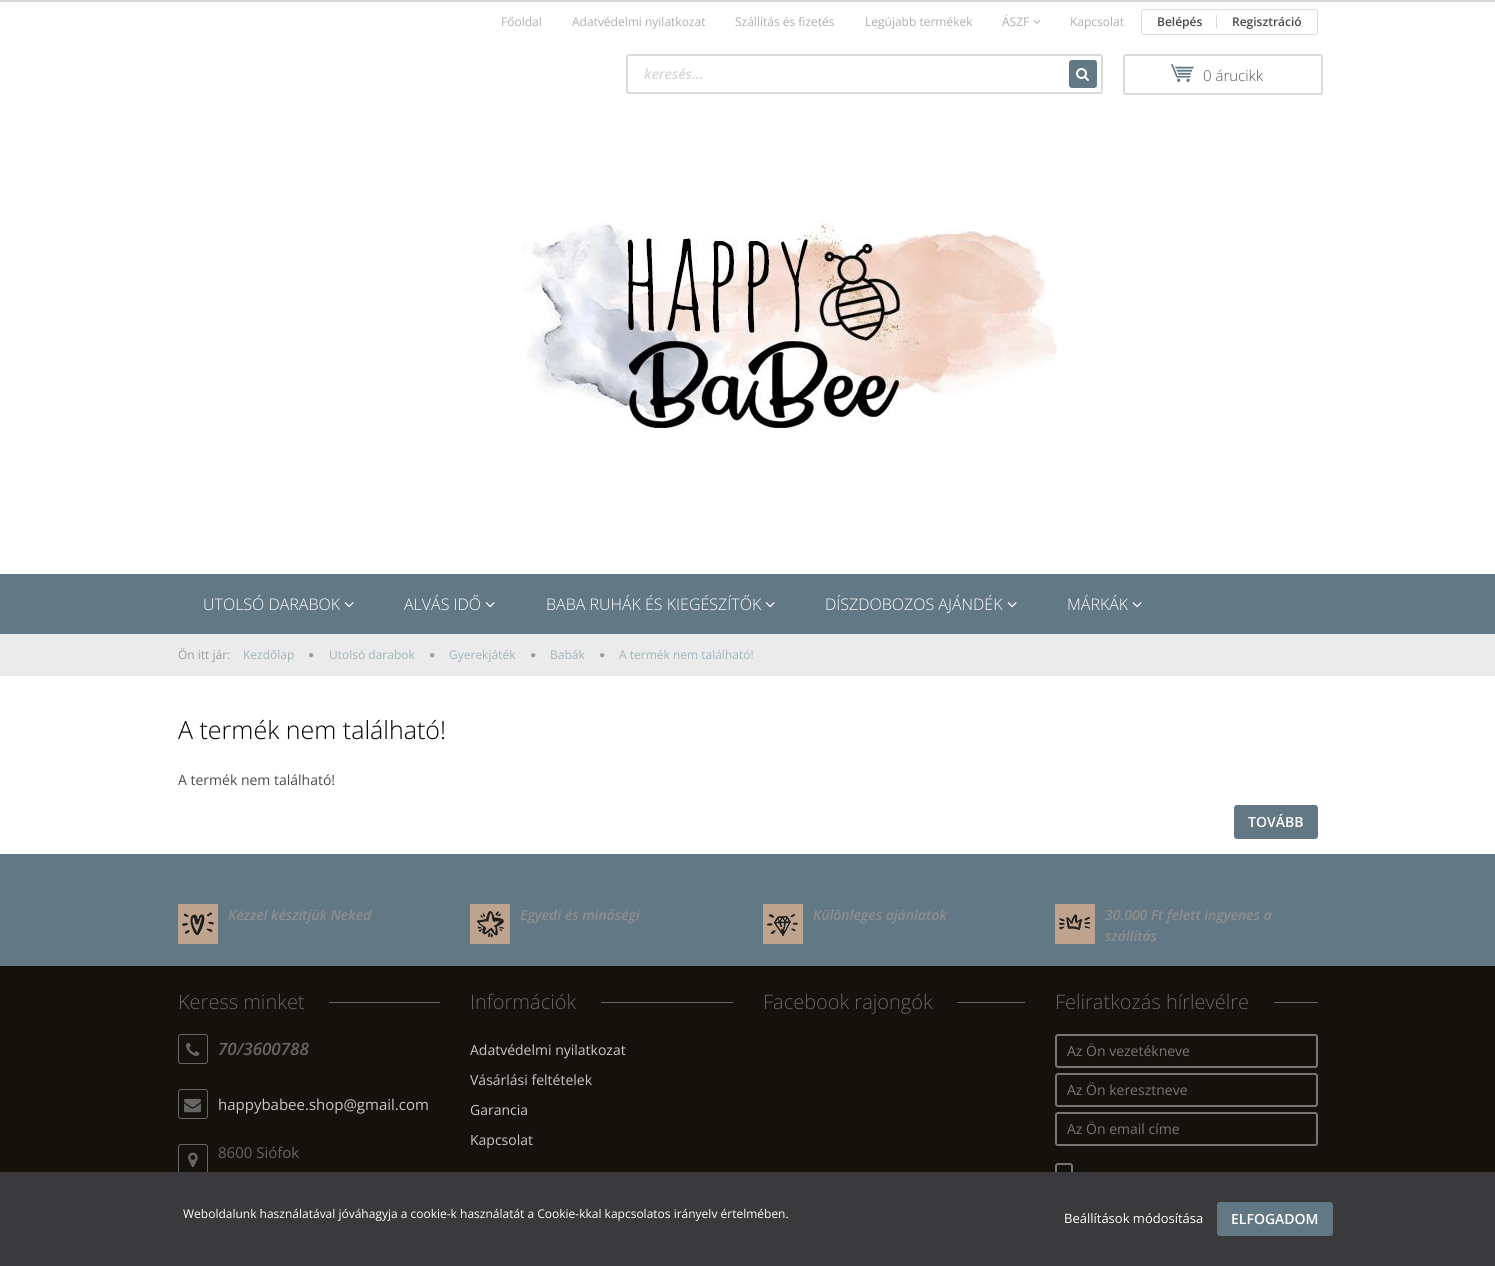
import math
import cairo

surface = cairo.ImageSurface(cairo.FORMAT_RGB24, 1495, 1266)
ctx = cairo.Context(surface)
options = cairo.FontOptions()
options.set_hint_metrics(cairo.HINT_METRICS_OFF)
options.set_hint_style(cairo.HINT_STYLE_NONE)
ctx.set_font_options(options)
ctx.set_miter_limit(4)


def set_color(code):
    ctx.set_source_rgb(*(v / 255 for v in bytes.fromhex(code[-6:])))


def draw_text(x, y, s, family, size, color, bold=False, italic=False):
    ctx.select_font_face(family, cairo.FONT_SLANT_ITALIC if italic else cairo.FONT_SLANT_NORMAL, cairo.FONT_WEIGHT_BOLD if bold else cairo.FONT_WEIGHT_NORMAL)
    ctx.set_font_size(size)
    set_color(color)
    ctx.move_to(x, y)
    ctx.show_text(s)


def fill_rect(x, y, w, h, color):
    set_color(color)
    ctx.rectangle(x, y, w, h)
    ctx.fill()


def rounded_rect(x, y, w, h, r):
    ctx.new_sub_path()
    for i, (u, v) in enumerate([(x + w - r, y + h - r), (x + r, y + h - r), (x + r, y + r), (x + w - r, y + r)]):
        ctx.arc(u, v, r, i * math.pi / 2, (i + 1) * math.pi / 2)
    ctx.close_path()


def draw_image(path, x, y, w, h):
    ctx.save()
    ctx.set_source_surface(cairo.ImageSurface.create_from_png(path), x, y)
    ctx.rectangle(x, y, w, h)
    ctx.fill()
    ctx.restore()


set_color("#ffffff")
ctx.paint()
fill_rect(0, 0, 1495, 2, "#d7d7d7")
draw_text(501, 26, "Főoldal", "Open Sans", 12, "#aeaead")
draw_text(572, 26, "Adatvédelmi nyilatkozat", "Open Sans", 12, "#aeaead")
draw_text(735, 26, "Szállítás és fizetés", "Open Sans", 12, "#aeaead")
draw_text(865, 26, "Legújabb termékek", "Open Sans", 12, "#aeaead")
draw_text(1002, 26, "ÁSZF", "Open Sans", 12, "#aeaead")
draw_image("assets/img1.png", 1033, 20, 8, 4)
draw_text(1070, 26, "Kapcsolat", "Open Sans", 12, "#aeaead")
rounded_rect(1141.5, 9.5, 176, 25, 2.5)
set_color("#dadada")
ctx.set_line_width(1)
ctx.stroke()
draw_text(1157, 26, "Belépés", "Open Sans SemiBold", 12, "#4a4a4a")
fill_rect(1216, 15, 1, 13, "#dadada")
draw_text(1232, 26, "Regisztráció", "Open Sans SemiBold", 12, "#4a4a4a")
rounded_rect(627, 55, 475, 38, 2)
set_color("#dadada")
ctx.set_line_width(2)
ctx.stroke()
draw_text(644, 79, "keresés...", "Open Sans SemiBold", 14, "#d6d6d5", italic=True)
set_color("#627885")
rounded_rect(1069, 60, 28, 28, 3)
ctx.fill()
draw_image("assets/img2.png", 1076, 68, 13, 13)
rounded_rect(1124, 55, 198, 39, 2)
set_color("#dadada")
ctx.stroke()
draw_image("assets/img3.png", 1171, 64, 23, 18)
draw_text(1203, 81, "0 árucikk", "Open Sans Light", 15, "#555555")
draw_image("assets/img4.png", 522, 220, 536, 210)
fill_rect(0, 574, 1495, 60, "#627885")
draw_text(203, 610, "UTOLSÓ DARABOK", "Open Sans Light", 16, "#ffffff")
draw_image("assets/img5.png", 344, 602, 10, 6)
draw_text(404, 610, "ALVÁS IDŐ", "Open Sans Light", 16, "#ffffff")
draw_image("assets/img5.png", 485, 602, 10, 6)
draw_text(546, 610, "BABA RUHÁK ÉS KIEGÉSZÍTŐK", "Open Sans Light", 16, "#ffffff")
draw_image("assets/img5.png", 765, 602, 10, 6)
draw_text(825, 610, "DÍSZDOBOZOS AJÁNDÉK", "Open Sans Light", 16, "#ffffff")
draw_image("assets/img5.png", 1007, 602, 10, 6)
draw_text(1067, 610, "MÁRKÁK", "Open Sans Light", 16, "#ffffff")
draw_image("assets/img5.png", 1132, 602, 10, 6)
fill_rect(0, 634, 1495, 42, "#ebebeb")
draw_text(178, 659, "Ön itt jár:", "Open Sans", 12, "#9b9c9c")
draw_text(243, 659, "Kezdőlap", "Open Sans", 12, "#a2b3ba")
draw_image("assets/img6.png", 309, 653, 5, 5)
draw_text(329, 659, "Utolsó darabok", "Open Sans", 12, "#a2b3ba")
draw_image("assets/img6.png", 430, 653, 5, 5)
draw_text(449, 659, "Gyerekjáték", "Open Sans", 12, "#a2b3ba")
draw_image("assets/img6.png", 531, 653, 5, 5)
draw_text(550, 659, "Babák", "Open Sans", 12, "#a2b3ba")
draw_image("assets/img6.png", 600, 653, 5, 5)
draw_text(619, 659, "A termék nem található!", "Open Sans", 12, "#a2b3ba")
draw_text(178, 739, "A termék nem található!", "Open Sans Light", 25, "#000000")
draw_text(178, 785, "A termék nem található!", "Open Sans", 14, "#4a4a4a")
set_color("#627885")
rounded_rect(1235, 806, 82, 32, 2)
ctx.fill_preserve()
ctx.stroke()
draw_text(1248, 827, "TOVÁBB", "Open Sans SemiBold", 14, "#ffffff")
fill_rect(0, 854, 1495, 112, "#627885")
draw_image("assets/img7.png", 178, 904, 40, 40)
draw_text(228, 920, "Kézzel készítjük Neked", "Open Sans SemiBold", 14, "#8e8e8e", italic=True)
draw_image("assets/img8.png", 470, 904, 40, 40)
draw_text(520, 920, "Egyedi és minőségi", "Open Sans SemiBold", 14, "#8e8e8e", italic=True)
draw_image("assets/img9.png", 763, 904, 40, 40)
draw_text(813, 920, "Különleges ajánlatok", "Open Sans SemiBold", 14, "#8e8e8e", italic=True)
draw_image("assets/img10.png", 1055, 904, 40, 40)
draw_text(1105, 920, "30.000 Ft felett ingyenes a", "Open Sans SemiBold", 14, "#8e8e8e", italic=True)
draw_text(1105, 941, "szállítás", "Open Sans SemiBold", 14, "#8e8e8e", italic=True)
fill_rect(0, 966, 1495, 206, "#15120e")
draw_text(178, 1009, "Keress minket", "Open Sans Light", 20, "#656565")
fill_rect(329, 1002, 111, 1, "#656565")
rounded_rect(178.5, 1034.5, 29, 29, 2.5)
ctx.set_line_width(1)
ctx.stroke()
draw_image("assets/img11.png", 186, 1042, 14, 14)
draw_text(218, 1055, "70/3600788", "Open Sans SemiBold", 17, "#656565", italic=True)
rounded_rect(178.5, 1089.5, 29, 29, 2.5)
ctx.stroke()
draw_image("assets/img12.png", 184, 1098, 17, 15)
draw_text(218, 1110, "happybabee.shop@gmail.com", "Open Sans", 15, "#c8c8c8")
rounded_rect(178.5, 1144.5, 29, 29, 2.5)
set_color("#656565")
ctx.stroke()
draw_image("assets/img13.png", 188, 1152, 10, 16)
draw_text(218, 1158, "8600 Siófok", "Open Sans", 15, "#656565")
draw_text(470, 1009, "Információk", "Open Sans Light", 20, "#656565")
fill_rect(601, 1002, 132, 1, "#656565")
draw_text(470, 1055, "Adatvédelmi nyilatkozat", "Open Sans", 14, "#c8c8c8")
draw_text(470, 1085, "Vásárlási feltételek", "Open Sans", 14, "#c8c8c8")
draw_text(470, 1115, "Garancia", "Open Sans", 14, "#c8c8c8")
draw_text(470, 1145, "Kapcsolat", "Open Sans", 14, "#c8c8c8")
draw_text(763, 1009, "Facebook rajongók", "Open Sans Light", 20, "#656565")
fill_rect(957, 1002, 68, 1, "#656565")
draw_text(1055, 1009, "Feliratkozás hírlevélre", "Open Sans Light", 20, "#656565")
fill_rect(1274, 1002, 44, 1, "#656565")
rounded_rect(1056, 1035, 261, 32, 2)
set_color("#787575")
ctx.set_line_width(2)
ctx.stroke()
draw_text(1067, 1056, "Az Ön vezetékneve", "Open Sans", 14, "#787575")
rounded_rect(1056, 1074, 261, 32, 2)
ctx.stroke()
draw_text(1067, 1095, "Az Ön keresztneve", "Open Sans", 14, "#787575")
rounded_rect(1056, 1113, 261, 32, 2)
ctx.stroke()
draw_text(1067, 1134, "Az Ön email címe", "Open Sans", 14, "#787575")
rounded_rect(1056, 1164, 16, 16, 2)
ctx.stroke()
fill_rect(0, 1172, 1495, 94, "#3a393b")
draw_text(183, 1218, "Weboldalunk használatával jóváhagyja a cookie-k használatát a Cookie-kkal kapcsolatos irányelv értelmében.", "Open Sans", 12, "#ffffff")
draw_text(1064, 1223, "Beállítások módosítása", "Open Sans", 13, "#ffffff")
set_color("#627885")
rounded_rect(1218, 1203, 114, 32, 2)
ctx.fill_preserve()
ctx.stroke()
draw_text(1231, 1224, "ELFOGADOM", "Open Sans SemiBold", 14, "#ffffff")
surface.write_to_png("output.png")
